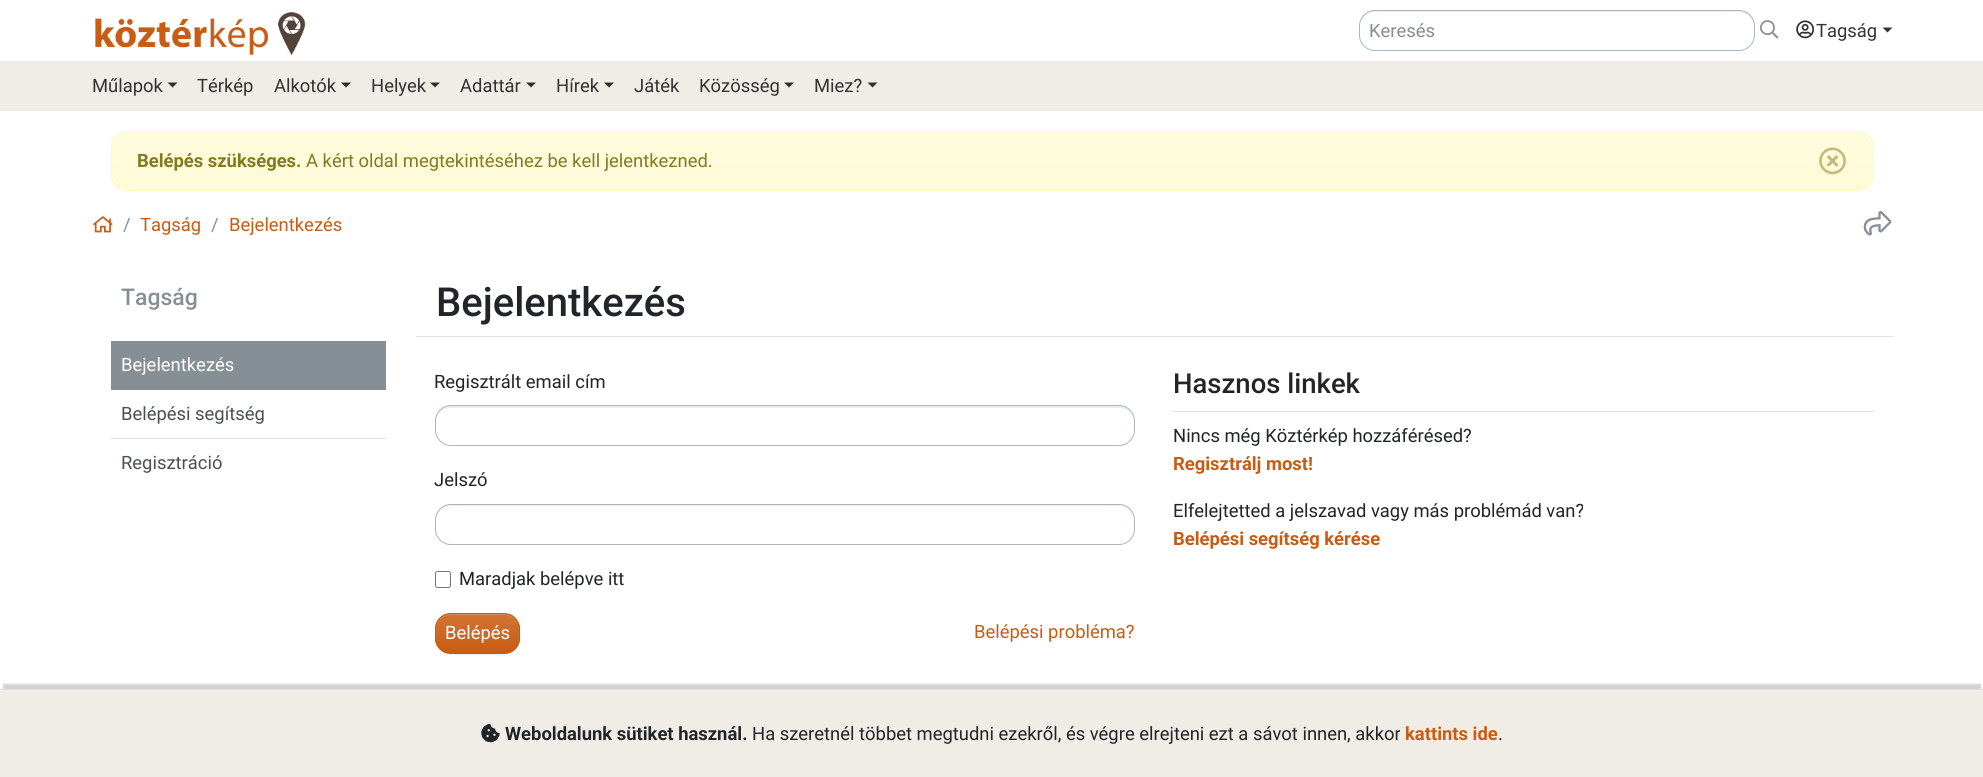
import math
import cairo

surface = cairo.ImageSurface(cairo.FORMAT_RGB24, 1983, 777)
ctx = cairo.Context(surface)
options = cairo.FontOptions()
options.set_hint_metrics(cairo.HINT_METRICS_OFF)
options.set_hint_style(cairo.HINT_STYLE_NONE)
ctx.set_font_options(options)
ctx.set_miter_limit(4)


def set_color(code):
    ctx.set_source_rgb(*(v / 255 for v in bytes.fromhex(code[-6:])))


def draw_text(x, y, s, family, size, color, bold=False, italic=False):
    ctx.select_font_face(family, cairo.FONT_SLANT_ITALIC if italic else cairo.FONT_SLANT_NORMAL, cairo.FONT_WEIGHT_BOLD if bold else cairo.FONT_WEIGHT_NORMAL)
    ctx.set_font_size(size)
    set_color(color)
    ctx.move_to(x, y)
    ctx.show_text(s)


def fill_rect(x, y, w, h, color):
    set_color(color)
    ctx.rectangle(x, y, w, h)
    ctx.fill()


def rounded_rect(x, y, w, h, r):
    ctx.new_sub_path()
    for i, (u, v) in enumerate([(x + w - r, y + h - r), (x + r, y + h - r), (x + r, y + r), (x + w - r, y + r)]):
        ctx.arc(u, v, r, i * math.pi / 2, (i + 1) * math.pi / 2)
    ctx.close_path()


def draw_shadow(x, y, w, h, r, blur, alpha):
    ctx.push_group_with_content(cairo.CONTENT_ALPHA)
    ctx.set_operator(cairo.OPERATOR_SOURCE)
    for i in range(15, -16, -2):
        e = blur * i / 6
        if min(w, h) + 2 * e > 0:
            ctx.set_source_rgba(0, 0, 0, alpha * math.erfc((i - 1) / 8.5) / 2)
            rounded_rect(x - e, y - e, w + 2 * e, h + 2 * e, max(0, min(r + e + blur * .6, min(w, h) / 2 + e)))
            ctx.fill()
    ctx.mask(ctx.pop_group())


def draw_image(path, x, y, w, h):
    ctx.save()
    ctx.set_source_surface(cairo.ImageSurface.create_from_png(path), x, y)
    ctx.rectangle(x, y, w, h)
    ctx.fill()
    ctx.restore()


set_color("#ffffff")
ctx.paint()
draw_image("assets/img1.png", 95, 12, 211, 44)
set_color("#ececec")
ctx.new_path()
ctx.move_to(1375, 12)
ctx.line_to(1739, 12)
ctx.curve_to(1747, 12, 1754, 19, 1754, 27)
ctx.line_to(1754, 26)
ctx.curve_to(1754, 18, 1747, 11, 1739, 11)
ctx.line_to(1375, 11)
ctx.curve_to(1367, 11, 1360, 18, 1360, 26)
ctx.line_to(1360, 27)
ctx.curve_to(1360, 19, 1367, 12, 1375, 12)
ctx.close_path()
ctx.fill()
rounded_rect(1359.5, 10.5, 395, 40, 15.5)
set_color("#adb5bd")
ctx.set_line_width(1)
ctx.stroke()
draw_text(1369, 37, "Keresés", "Roboto", 18.4, "#868e96")
draw_image("assets/img2.png", 1760, 20, 19, 19)
draw_image("assets/img3.png", 1796, 20, 19, 19)
draw_text(1816, 37, "Tagság", "Roboto", 18.4, "#333333")
ctx.new_path()
ctx.move_to(1882.5, 27.5)
ctx.line_to(1892.5, 27.5)
ctx.line_to(1887.5, 32.5)
ctx.close_path()
ctx.fill()
fill_rect(0, 61, 1983, 50, "#efede5")
draw_text(92, 92, "Műlapok", "Roboto", 18.4, "#333333")
set_color("#302f2e")
ctx.new_path()
ctx.move_to(167.5, 82.5)
ctx.line_to(177.5, 82.5)
ctx.line_to(172.5, 87.5)
ctx.close_path()
ctx.fill()
draw_text(197, 92, "Térkép", "Roboto", 18.4, "#333333")
draw_text(274, 92, "Alkotók", "Roboto", 18.4, "#333333")
set_color("#302f2e")
ctx.new_path()
ctx.move_to(341, 82.5)
ctx.line_to(351, 82.5)
ctx.line_to(346, 87.5)
ctx.close_path()
ctx.fill()
draw_text(371, 92, "Helyek", "Roboto", 18.4, "#333333")
set_color("#302f2e")
ctx.new_path()
ctx.move_to(430, 82.5)
ctx.line_to(440, 82.5)
ctx.line_to(435, 87.5)
ctx.close_path()
ctx.fill()
draw_text(460, 92, "Adattár", "Roboto", 18.4, "#333333")
set_color("#302f2e")
ctx.new_path()
ctx.move_to(526, 82.5)
ctx.line_to(536, 82.5)
ctx.line_to(531, 87.5)
ctx.close_path()
ctx.fill()
draw_text(556, 92, "Hírek", "Roboto", 18.4, "#333333")
set_color("#302f2e")
ctx.new_path()
ctx.move_to(604, 82.5)
ctx.line_to(614, 82.5)
ctx.line_to(609, 87.5)
ctx.close_path()
ctx.fill()
draw_text(634, 92, "Játék", "Roboto", 18.4, "#333333")
draw_text(699, 92, "Közösség", "Roboto", 18.4, "#333333")
set_color("#302f2e")
ctx.new_path()
ctx.move_to(784, 82.5)
ctx.line_to(794, 82.5)
ctx.line_to(789, 87.5)
ctx.close_path()
ctx.fill()
draw_text(814, 92, "Miez?", "Roboto", 18.4, "#333333")
set_color("#302f2e")
ctx.new_path()
ctx.move_to(867.5, 82.5)
ctx.line_to(877.5, 82.5)
ctx.line_to(872.5, 87.5)
ctx.close_path()
ctx.fill()
set_color("#fffbd8")
rounded_rect(111, 131, 1763, 60, 16)
ctx.fill()
ctx.save()
rounded_rect(111, 131, 1763, 60, 16)
ctx.clip()
gradient = cairo.LinearGradient(993, 132, 993, 190)
gradient.add_color_stop_rgba(0, 1, 0.988, 0.871, 1)
gradient.add_color_stop_rgba(1, 1, 0.984, 0.847, 1)
ctx.set_source(gradient)
ctx.rectangle(111, 133, 1763, 57)
ctx.fill()
ctx.restore()
rounded_rect(111.5, 131.5, 1762, 59, 15.5)
set_color("#fff9c8")
ctx.stroke()
draw_text(137, 167, "Belépés szükséges.", "Roboto", 18.4, "#857a1f", bold=True)
draw_text(306, 167, "A kért oldal megtekintéséhez be kell jelentkezned.", "Roboto", 18.4, "#857a1f")
draw_image("assets/img4.png", 1819, 147, 27, 28)
draw_image("assets/img5.png", 93, 216, 20, 17)
draw_text(123, 231, "/", "Roboto", 18.4, "#868e96")
draw_text(140, 231, "Tagság", "Roboto", 18.4, "#c95b12")
draw_text(211, 231, "/", "Roboto", 18.4, "#868e96")
draw_text(229, 231, "Bejelentkezés", "Roboto", 18.4, "#c95b12")
draw_image("assets/img6.png", 1863, 211, 29, 25)
draw_text(121, 305, "Tagság", "Roboto Medium", 23, "#868e96")
fill_rect(111, 341, 275, 49, "#868e96")
draw_text(121, 371, "Bejelentkezés", "Roboto", 18.4, "#ffffff")
draw_text(121, 420, "Belépési segítség", "Roboto", 18.4, "#495057")
fill_rect(111, 438, 275, 1, "#dfdfdf")
draw_text(121, 469, "Regisztráció", "Roboto", 18.4, "#495057")
fill_rect(416, 336, 1477, 1, "#dee2e6")
draw_text(436, 316, "Bejelentkezés", "Roboto Medium", 40, "#212529")
draw_text(434, 388, "Regisztrált email cím", "Roboto", 18.4, "#212529")
set_color("#ececec")
ctx.new_path()
ctx.move_to(451, 408)
ctx.line_to(1119, 408)
ctx.curve_to(1127, 408, 1134, 414, 1134, 422)
ctx.line_to(1134, 421)
ctx.curve_to(1134, 413, 1127, 406, 1119, 406)
ctx.line_to(451, 406)
ctx.curve_to(443, 406, 436, 413, 436, 421)
ctx.line_to(436, 422)
ctx.curve_to(436, 414, 443, 408, 451, 408)
ctx.close_path()
ctx.fill()
rounded_rect(435.5, 405.5, 699, 40, 15.5)
set_color("#adb5bd")
ctx.stroke()
draw_text(434, 486, "Jelszó", "Roboto", 18.4, "#212529")
set_color("#ececec")
ctx.new_path()
ctx.move_to(451, 506)
ctx.line_to(1119, 506)
ctx.curve_to(1127, 506, 1134, 513, 1134, 521)
ctx.line_to(1134, 520)
ctx.curve_to(1134, 512, 1127, 505, 1119, 505)
ctx.line_to(451, 505)
ctx.curve_to(443, 505, 436, 512, 436, 520)
ctx.line_to(436, 521)
ctx.curve_to(436, 513, 443, 506, 451, 506)
ctx.close_path()
ctx.fill()
rounded_rect(435.5, 504.5, 699, 40, 15.5)
set_color("#adb5bd")
ctx.stroke()
rounded_rect(435.5, 571.5, 15, 16, 2)
set_color("#767676")
ctx.stroke()
draw_text(459, 585, "Maradjak belépve itt", "Roboto", 18.4, "#212529")
set_color("#000000")
draw_shadow(435, 614, 85, 41, 16, 0.5, 0.07)
ctx.save()
rounded_rect(435, 613, 85, 41, 16)
ctx.clip()
gradient = cairo.LinearGradient(478, 614, 478, 653)
gradient.add_color_stop_rgba(0, 0.82, 0.455, 0.212, 1)
gradient.add_color_stop_rgba(1, 0.788, 0.357, 0.071, 1)
ctx.set_source(gradient)
ctx.rectangle(435, 614, 85, 39)
ctx.fill()
ctx.restore()
ctx.set_source_rgba(1, 1, 1, 0.15)
ctx.new_path()
ctx.move_to(451, 615)
ctx.line_to(504, 615)
ctx.curve_to(512, 615, 519, 622, 519, 630)
ctx.line_to(519, 629)
ctx.curve_to(519, 621, 512, 614, 504, 614)
ctx.line_to(451, 614)
ctx.curve_to(443, 614, 436, 621, 436, 629)
ctx.line_to(436, 630)
ctx.curve_to(436, 622, 443, 615, 451, 615)
ctx.close_path()
ctx.fill()
rounded_rect(435.5, 613.5, 84, 40, 15.5)
set_color("#c95b12")
ctx.stroke()
draw_text(445, 639, "Belépés", "Roboto", 18.4, "#ffffff")
draw_text(974, 638, "Belépési probléma?", "Roboto", 18.4, "#c95b12")
fill_rect(1173, 411, 701, 1, "#dee2e6")
draw_text(1173, 393, "Hasznos linkek", "Roboto Medium", 27.5, "#212529")
draw_text(1173, 442, "Nincs még Köztérkép hozzáférésed?", "Roboto", 18.4, "#212529")
draw_text(1173, 470, "Regisztrálj most!", "Roboto", 18.4, "#c95b12", bold=True)
draw_text(1173, 517, "Elfelejtetted a jelszavad vagy más problémád van?", "Roboto", 18.4, "#212529")
draw_text(1173, 545, "Belépési segítség kérése", "Roboto", 18.4, "#c95b12", bold=True)
set_color("#000000")
draw_shadow(3, 684, 1978, 84, 0, 1, 0.18)
fill_rect(0, 690, 1983, 87, "#efede5")
fill_rect(0, 689, 1983, 1, "#dee2e6")
draw_image("assets/img7.png", 481, 723, 19, 20)
draw_text(505, 740, "Weboldalunk sütiket használ.", "Roboto", 18.4, "#212529", bold=True)
draw_text(752, 740, "Ha szeretnél többet megtudni ezekről, és végre elrejteni ezt a sávot innen, akkor", "Roboto", 18.4, "#212529")
draw_text(1405, 740, "kattints ide", "Roboto", 18.4, "#c95b12", bold=True)
draw_text(1498, 740, ".", "Roboto", 18.4, "#212529")
surface.write_to_png("output.png")
